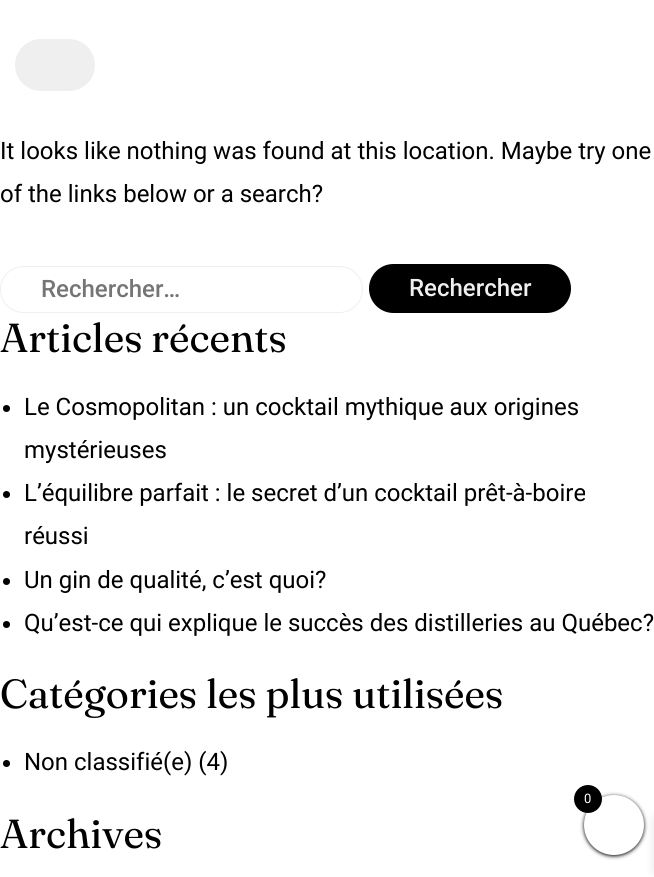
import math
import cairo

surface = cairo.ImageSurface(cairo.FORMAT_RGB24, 654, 877)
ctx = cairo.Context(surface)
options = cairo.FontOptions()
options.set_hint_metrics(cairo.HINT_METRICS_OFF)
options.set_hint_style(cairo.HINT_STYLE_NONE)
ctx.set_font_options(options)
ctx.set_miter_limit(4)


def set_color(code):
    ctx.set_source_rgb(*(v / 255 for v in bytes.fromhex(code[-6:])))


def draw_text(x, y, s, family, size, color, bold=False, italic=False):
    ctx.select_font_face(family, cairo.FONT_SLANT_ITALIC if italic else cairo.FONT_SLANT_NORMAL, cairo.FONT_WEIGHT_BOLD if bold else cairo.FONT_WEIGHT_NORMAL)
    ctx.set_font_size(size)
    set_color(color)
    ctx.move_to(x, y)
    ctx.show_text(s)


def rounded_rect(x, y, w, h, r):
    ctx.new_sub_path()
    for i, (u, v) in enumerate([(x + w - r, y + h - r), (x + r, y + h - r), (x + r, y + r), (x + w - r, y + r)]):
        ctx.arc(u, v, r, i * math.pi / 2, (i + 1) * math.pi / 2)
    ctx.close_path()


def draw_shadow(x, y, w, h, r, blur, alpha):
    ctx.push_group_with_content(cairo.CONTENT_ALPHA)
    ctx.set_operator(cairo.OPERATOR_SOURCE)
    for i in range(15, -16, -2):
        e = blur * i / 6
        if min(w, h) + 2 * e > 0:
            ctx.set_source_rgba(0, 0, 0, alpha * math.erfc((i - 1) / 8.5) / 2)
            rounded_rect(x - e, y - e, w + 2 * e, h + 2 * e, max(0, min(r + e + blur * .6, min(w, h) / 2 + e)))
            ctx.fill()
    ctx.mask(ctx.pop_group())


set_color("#ffffff")
ctx.paint()
set_color("#efefef")
rounded_rect(15, 39, 80, 52, 26)
ctx.fill()
draw_text(0, 159, "It looks like nothing was found at this location. Maybe try one", "Roboto", 24, "#000000")
draw_text(0, 202, "of the links below or a search?", "Roboto", 24, "#000000")
rounded_rect(0.5, 266.5, 362, 46, 23)
set_color("#efefef")
ctx.set_line_width(1)
ctx.stroke()
draw_text(41, 297, "Rechercher…", "Roboto Medium", 24, "#757575")
set_color("#000000")
rounded_rect(369, 264, 202, 49, 24.5)
ctx.fill()
draw_text(409, 296, "Rechercher", "Roboto Medium", 24, "#efefef")
draw_text(0, 352, "Articles récents", "Fraunces", 40.5, "#000000")
ctx.new_path()
ctx.arc(6.5, 408.5, 3.5, 0, 2 * math.pi)
ctx.fill()
draw_text(24, 415, "Le Cosmopolitan : un cocktail mythique aux origines", "Roboto", 24, "#000000")
draw_text(24, 458, "mystérieuses", "Roboto", 24, "#000000")
ctx.new_path()
ctx.arc(6.5, 494.5, 3.5, 0, 2 * math.pi)
ctx.fill()
draw_text(24, 501, "L’équilibre parfait : le secret d’un cocktail prêt-à-boire", "Roboto", 24, "#000000")
draw_text(24, 544, "réussi", "Roboto", 24, "#000000")
ctx.new_path()
ctx.arc(6.5, 581.5, 3.5, 0, 2 * math.pi)
ctx.fill()
draw_text(24, 588, "Un gin de qualité, c’est quoi?", "Roboto", 24, "#000000")
ctx.new_path()
ctx.arc(6.5, 624.5, 3.5, 0, 2 * math.pi)
ctx.fill()
draw_text(24, 631, "Qu’est-ce qui explique le succès des distilleries au Québec?", "Roboto", 24, "#000000")
draw_text(0, 708, "Catégories les plus utilisées", "Fraunces", 40.5, "#000000")
ctx.new_path()
ctx.arc(6.5, 763.5, 3.5, 0, 2 * math.pi)
ctx.fill()
draw_text(24, 770, "Non classifié(e) (4)", "Roboto", 24, "#000000")
draw_text(0, 848, "Archives", "Fraunces", 40.5, "#000000")
set_color("#000000")
draw_shadow(584, 796, 60, 60, 30, 2, 1)
draw_shadow(654, 818, 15, 54, 0, 5, 0.1)
set_color("#ffffff")
ctx.arc(614, 825, 30, 0, 2 * math.pi)
ctx.fill()
set_color("#000000")
ctx.arc(588, 799, 14, 0, 2 * math.pi)
ctx.fill()
draw_text(584, 803, "0", "Roboto", 13, "#ffffff")
surface.write_to_png("output.png")
